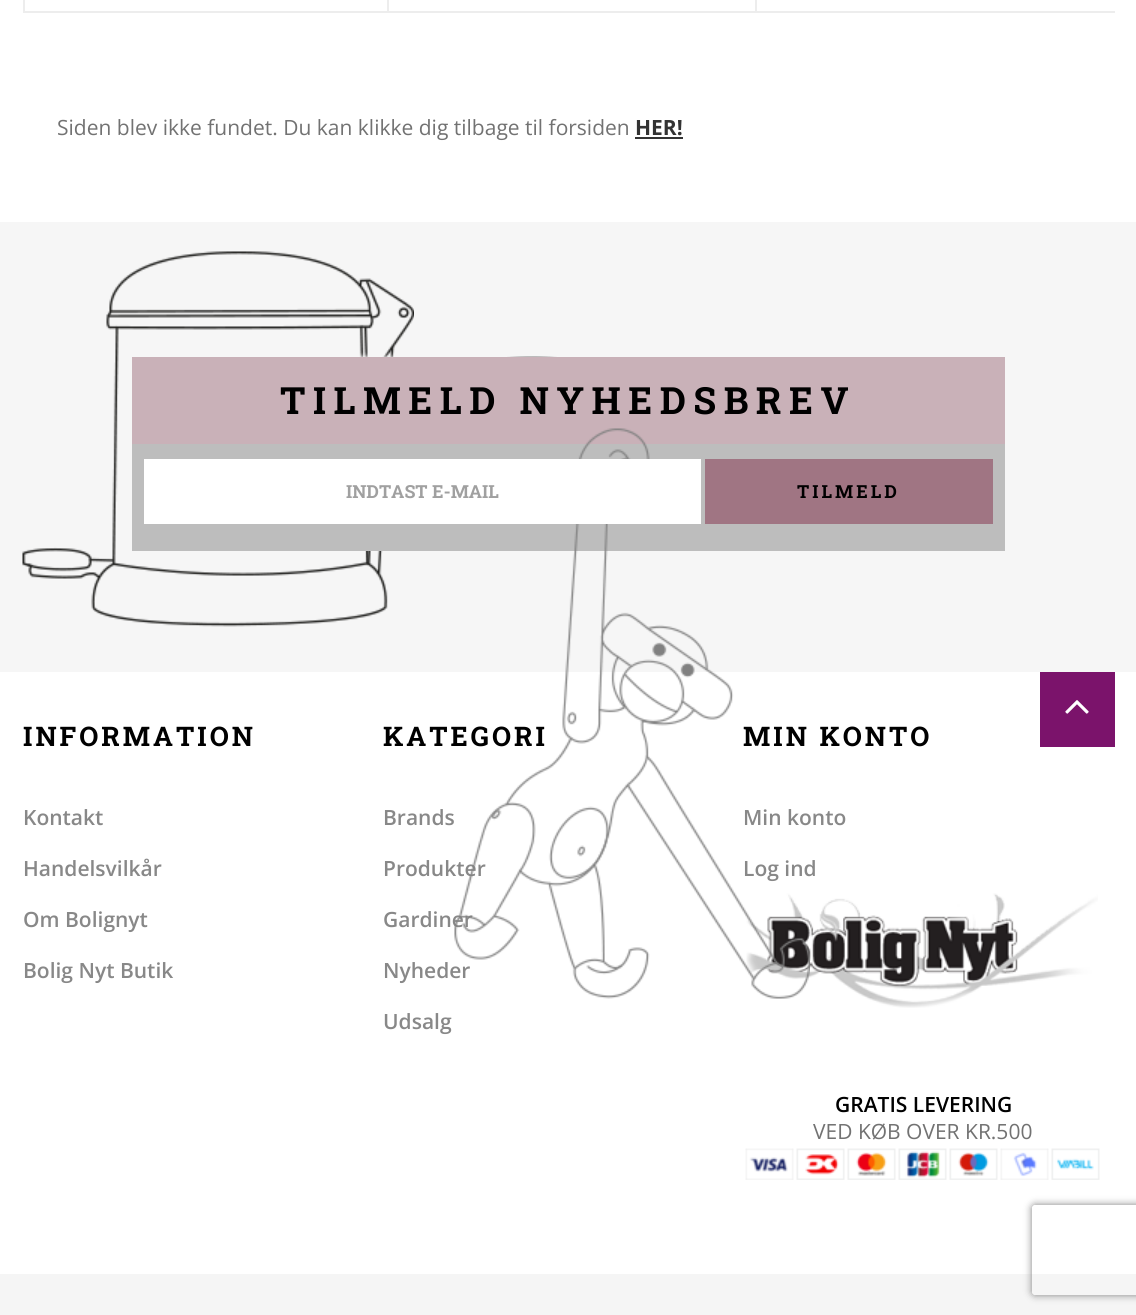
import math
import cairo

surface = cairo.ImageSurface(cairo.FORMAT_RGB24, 1136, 1315)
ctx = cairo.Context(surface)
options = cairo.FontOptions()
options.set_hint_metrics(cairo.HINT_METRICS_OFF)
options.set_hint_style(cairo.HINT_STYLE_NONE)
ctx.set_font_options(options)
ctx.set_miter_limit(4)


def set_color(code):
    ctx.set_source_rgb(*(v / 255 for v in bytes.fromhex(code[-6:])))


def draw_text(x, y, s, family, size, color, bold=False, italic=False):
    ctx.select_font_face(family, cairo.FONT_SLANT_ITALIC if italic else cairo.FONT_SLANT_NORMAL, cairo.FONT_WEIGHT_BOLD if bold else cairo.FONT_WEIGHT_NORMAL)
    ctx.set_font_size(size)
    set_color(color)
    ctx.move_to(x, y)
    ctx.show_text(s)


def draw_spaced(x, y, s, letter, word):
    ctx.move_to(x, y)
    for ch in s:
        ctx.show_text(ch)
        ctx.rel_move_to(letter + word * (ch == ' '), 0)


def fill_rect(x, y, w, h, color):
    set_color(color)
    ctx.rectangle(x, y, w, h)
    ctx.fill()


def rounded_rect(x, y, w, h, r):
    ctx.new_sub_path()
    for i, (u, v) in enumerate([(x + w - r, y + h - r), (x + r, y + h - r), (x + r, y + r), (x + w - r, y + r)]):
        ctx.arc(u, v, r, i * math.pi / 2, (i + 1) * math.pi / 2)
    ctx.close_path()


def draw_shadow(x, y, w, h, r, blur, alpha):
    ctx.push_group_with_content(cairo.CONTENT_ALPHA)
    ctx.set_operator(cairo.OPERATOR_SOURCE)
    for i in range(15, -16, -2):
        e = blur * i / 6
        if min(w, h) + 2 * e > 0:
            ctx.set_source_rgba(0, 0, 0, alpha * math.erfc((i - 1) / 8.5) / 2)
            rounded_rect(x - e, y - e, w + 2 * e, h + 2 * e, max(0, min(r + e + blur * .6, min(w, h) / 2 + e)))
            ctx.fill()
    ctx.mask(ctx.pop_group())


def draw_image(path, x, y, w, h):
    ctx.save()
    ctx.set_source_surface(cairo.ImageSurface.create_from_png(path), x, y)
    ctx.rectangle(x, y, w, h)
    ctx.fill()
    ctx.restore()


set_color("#ffffff")
ctx.paint()
fill_rect(23, 11, 1092, 2, "#ededed")
fill_rect(23, 0, 2, 12, "#ededed")
fill_rect(387, 0, 2, 11, "#ededed")
fill_rect(755, 0, 2, 11, "#ededed")
draw_text(57, 135, "Siden blev ikke fundet. Du kan klikke dig tilbage til forsiden", "Open Sans", 21, "#727272")
draw_text(635, 135, "HER!", "Open Sans", 21, "#333333", bold=True)
fill_rect(635, 137, 48, 2, "#333333")
fill_rect(0, 222, 1136, 450, "#f6f6f6")
draw_image("assets/img1.png", 22, 251, 392, 376)
draw_image("assets/img2.png", 507, 356, 50, 1)
fill_rect(132, 357, 873, 87, "#c9b1b8")
ctx.select_font_face("Roboto Slab", cairo.FONT_SLANT_NORMAL, cairo.FONT_WEIGHT_BOLD)
ctx.set_font_size(37.5)
set_color("#000000")
draw_spaced(280, 414, "TILMELD NYHEDSBREV", 7.5, 0)
fill_rect(132, 444, 873, 107, "#bdbdbd")
fill_rect(705, 459, 288, 65, "#a07583")
ctx.set_font_size(18)
set_color("#000000")
draw_spaced(797, 498, "TILMELD", 3, 0)
ctx.set_font_size(27)
draw_spaced(383, 746, "KATEGORI", 3, 0)
draw_text(383, 876, "Produkter", "Open Sans SemiBold", 21, "#888888")
draw_text(383, 927, "Gardiner", "Open Sans SemiBold", 21, "#888888")
draw_text(383, 978, "Nyheder", "Open Sans SemiBold", 21, "#888888")
ctx.select_font_face("Roboto Slab", cairo.FONT_SLANT_NORMAL, cairo.FONT_WEIGHT_BOLD)
ctx.set_font_size(27)
set_color("#000000")
draw_spaced(743, 746, "MIN KONTO", 3, 0)
draw_text(743, 825, "Min konto", "Open Sans SemiBold", 21, "#888888")
draw_text(743, 876, "Log ind", "Open Sans SemiBold", 21, "#888888")
draw_image("assets/img5.png", 746, 893, 352, 115)
draw_image("assets/img3.png", 454, 428, 356, 571)
fill_rect(144, 459, 557, 65, "#ffffff")
draw_text(346, 498, "INDTAST E-MAIL", "Roboto Slab", 18, "#a0a0a0", bold=True)
fill_rect(0, 1274, 1136, 41, "#f5f5f5")
ctx.save()
ctx.set_fill_rule(cairo.FILL_RULE_EVEN_ODD)
ctx.new_path()
ctx.move_to(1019, 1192)
ctx.line_to(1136, 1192)
ctx.line_to(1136, 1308)
ctx.line_to(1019, 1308)
ctx.close_path()
ctx.move_to(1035, 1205)
ctx.line_to(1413, 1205)
ctx.curve_to(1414.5, 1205, 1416, 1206.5, 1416, 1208)
ctx.line_to(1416, 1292)
ctx.curve_to(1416, 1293.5, 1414.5, 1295, 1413, 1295)
ctx.line_to(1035, 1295)
ctx.curve_to(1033.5, 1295, 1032, 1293.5, 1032, 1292)
ctx.line_to(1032, 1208)
ctx.curve_to(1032, 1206.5, 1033.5, 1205, 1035, 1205)
ctx.close_path()
ctx.clip()
set_color("#808080")
draw_shadow(1032, 1205, 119, 90, 3, 4, 1)
ctx.restore()
fill_rect(1040, 672, 75, 75, "#7b136b")
draw_image("assets/img4.png", 1065, 700, 24, 14)
ctx.set_font_size(27)
set_color("#000000")
draw_spaced(23, 746, "INFORMATION", 3, 0)
draw_text(23, 825, "Kontakt", "Open Sans SemiBold", 21, "#888888")
draw_text(23, 876, "Handelsvilkår", "Open Sans SemiBold", 21, "#888888")
draw_text(23, 927, "Om Bolignyt", "Open Sans SemiBold", 21, "#888888")
draw_text(23, 978, "Bolig Nyt Butik", "Open Sans SemiBold", 21, "#888888")
draw_text(383, 825, "Brands", "Open Sans SemiBold", 21, "#888888")
draw_text(383, 1029, "Udsalg", "Open Sans SemiBold", 21, "#888888")
draw_text(835, 1112, "GRATIS LEVERING", "Open Sans SemiBold", 21, "#000000")
draw_text(813, 1139, "VED KØB OVER KR.500", "Open Sans", 21, "#727272")
draw_image("assets/img6.png", 745, 1148, 355, 32)
surface.write_to_png("output.png")
